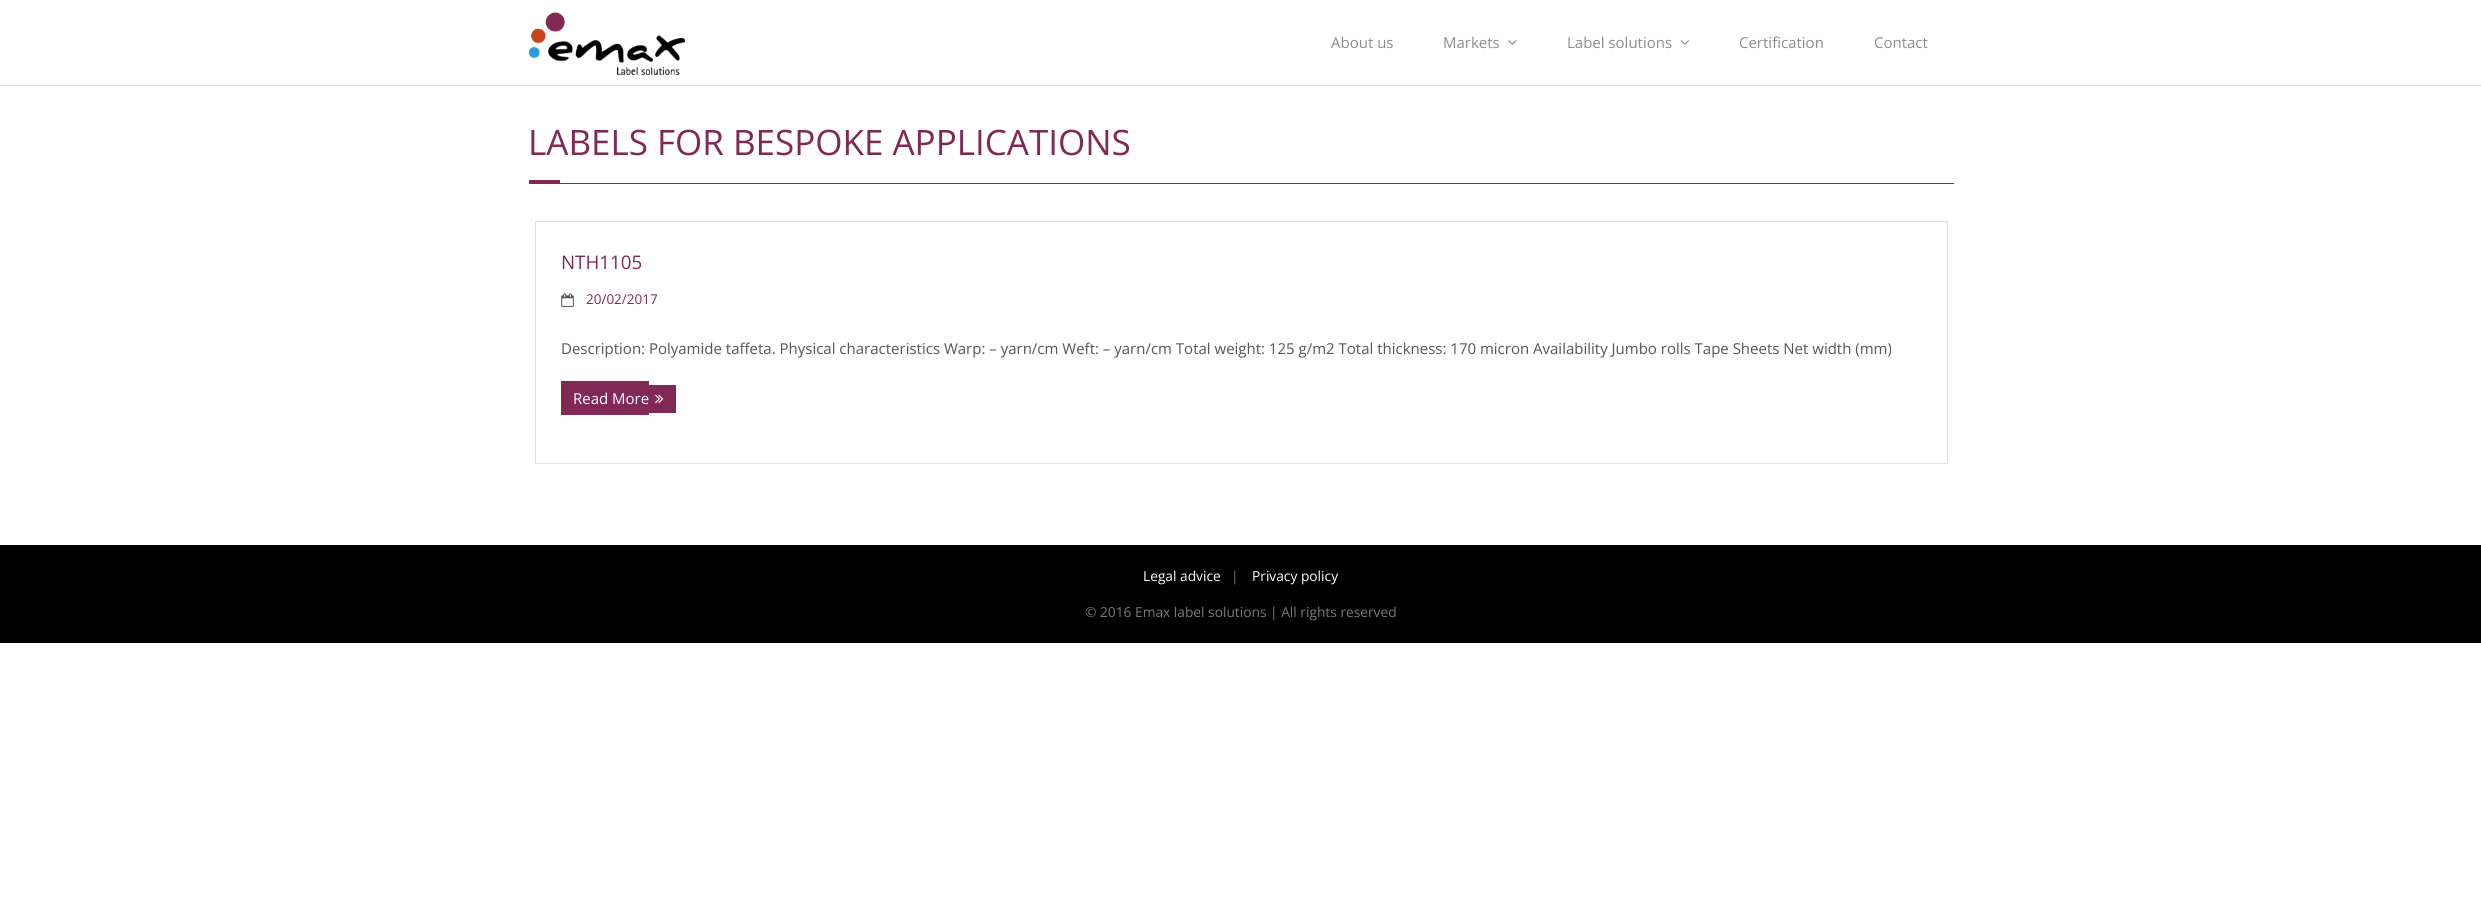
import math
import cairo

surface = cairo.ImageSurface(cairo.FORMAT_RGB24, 2481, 922)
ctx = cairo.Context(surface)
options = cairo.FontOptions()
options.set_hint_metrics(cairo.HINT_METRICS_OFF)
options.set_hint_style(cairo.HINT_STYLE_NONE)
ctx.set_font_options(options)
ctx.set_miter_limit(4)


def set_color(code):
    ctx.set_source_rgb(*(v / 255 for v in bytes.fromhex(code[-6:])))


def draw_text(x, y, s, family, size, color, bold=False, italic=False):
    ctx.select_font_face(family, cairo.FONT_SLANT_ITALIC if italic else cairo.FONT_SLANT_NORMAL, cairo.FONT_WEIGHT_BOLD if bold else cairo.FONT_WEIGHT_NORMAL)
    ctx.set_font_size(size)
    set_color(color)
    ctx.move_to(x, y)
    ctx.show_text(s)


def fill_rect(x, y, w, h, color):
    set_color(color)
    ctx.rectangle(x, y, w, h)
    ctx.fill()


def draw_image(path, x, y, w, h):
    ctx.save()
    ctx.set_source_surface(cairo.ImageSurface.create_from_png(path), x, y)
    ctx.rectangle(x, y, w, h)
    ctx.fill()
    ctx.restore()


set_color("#ffffff")
ctx.paint()
fill_rect(0, 85, 2481, 1, "#e0e0e0")
draw_image("assets/img1.png", 528, 12, 157, 63)
draw_text(1331, 48, "About us", "Open Sans", 15, "#8c8c8c")
draw_text(1443, 48, "Markets", "Open Sans", 15, "#8c8c8c")
draw_image("assets/img2.png", 1508, 40, 9, 5)
draw_text(1567, 48, "Label solutions", "Open Sans", 15, "#8c8c8c")
draw_image("assets/img3.png", 1680, 40, 9, 5)
draw_text(1739, 48, "Certification", "Open Sans", 15, "#8c8c8c")
draw_text(1874, 48, "Contact", "Open Sans", 15, "#8c8c8c")
draw_text(528, 155, "LABELS FOR BESPOKE APPLICATIONS", "Open Sans", 35, "#802955")
fill_rect(529, 180, 31, 4, "#802955")
fill_rect(560, 183, 1394, 1, "#802955")
ctx.rectangle(535.5, 221.5, 1412, 242)
set_color("#e0e0e0")
ctx.set_line_width(1)
ctx.stroke()
draw_text(561, 269, "NTH1105", "Open Sans", 18.75, "#802955")
draw_image("assets/img4.png", 561, 293, 13, 14)
draw_text(586, 304, "20/02/2017", "Open Sans", 13.5, "#802955")
draw_text(561, 354, "Description: Polyamide taffeta. Physical characteristics Warp: – yarn/cm Weft: – yarn/cm Total weight: 125 g/m2 Total thickness: 170 micron Availability Jumbo rolls Tape Sheets Net width (mm)", "Open Sans", 15, "#555555")
fill_rect(561, 381, 88, 34, "#802955")
draw_text(573, 404, "Read More", "Open Sans", 15, "#ffffff")
fill_rect(649, 385, 27, 28, "#802955")
draw_image("assets/img5.png", 655, 394, 9, 10)
fill_rect(0, 545, 2481, 98, "#000000")
draw_text(1143, 581, "Legal advice", "Open Sans", 13.75, "#ffffff")
draw_text(1231, 581, "|", "Open Sans", 13.75, "#7a7a7a")
draw_text(1252, 581, "Privacy policy", "Open Sans", 13.75, "#ffffff")
draw_text(1085, 617, "© 2016 Emax label solutions | All rights reserved", "Open Sans", 13.75, "#7a7a7a")
surface.write_to_png("output.png")
